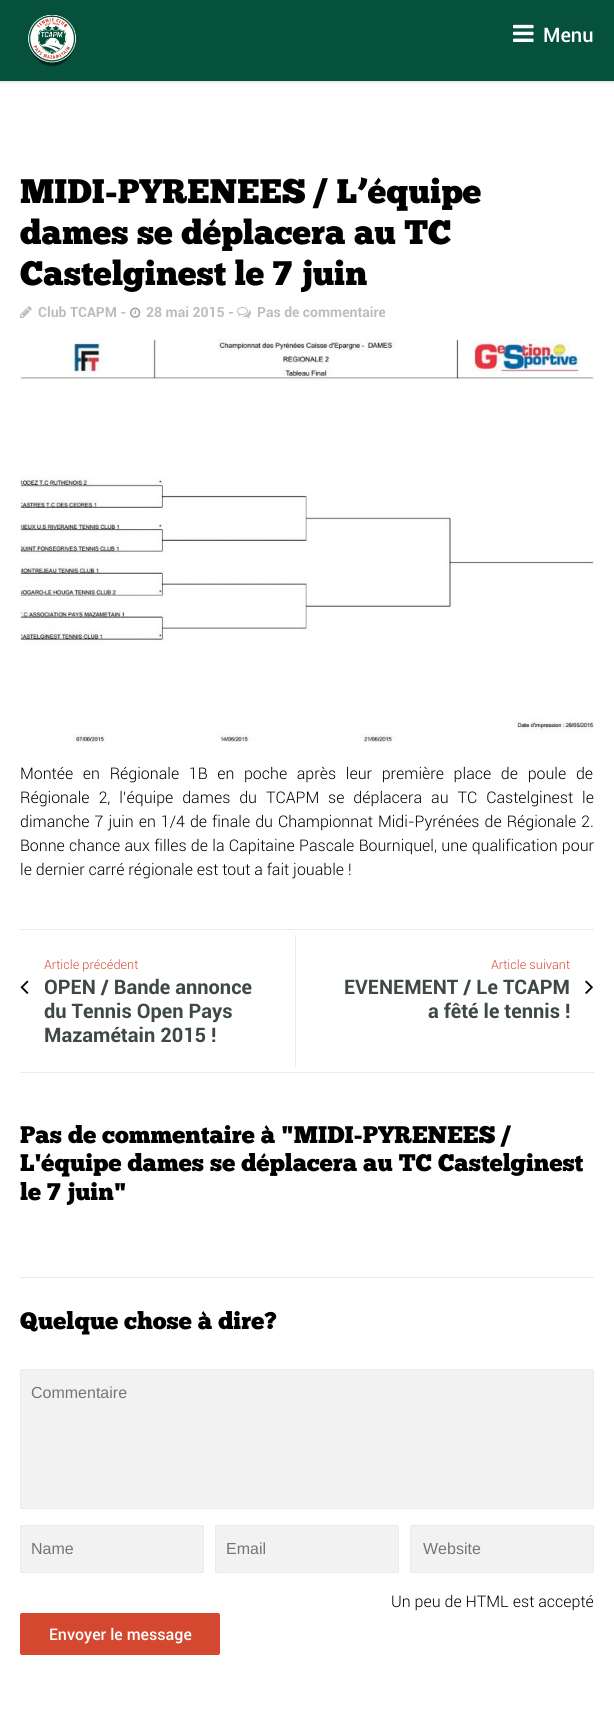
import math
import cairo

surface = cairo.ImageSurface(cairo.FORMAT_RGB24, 614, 1712)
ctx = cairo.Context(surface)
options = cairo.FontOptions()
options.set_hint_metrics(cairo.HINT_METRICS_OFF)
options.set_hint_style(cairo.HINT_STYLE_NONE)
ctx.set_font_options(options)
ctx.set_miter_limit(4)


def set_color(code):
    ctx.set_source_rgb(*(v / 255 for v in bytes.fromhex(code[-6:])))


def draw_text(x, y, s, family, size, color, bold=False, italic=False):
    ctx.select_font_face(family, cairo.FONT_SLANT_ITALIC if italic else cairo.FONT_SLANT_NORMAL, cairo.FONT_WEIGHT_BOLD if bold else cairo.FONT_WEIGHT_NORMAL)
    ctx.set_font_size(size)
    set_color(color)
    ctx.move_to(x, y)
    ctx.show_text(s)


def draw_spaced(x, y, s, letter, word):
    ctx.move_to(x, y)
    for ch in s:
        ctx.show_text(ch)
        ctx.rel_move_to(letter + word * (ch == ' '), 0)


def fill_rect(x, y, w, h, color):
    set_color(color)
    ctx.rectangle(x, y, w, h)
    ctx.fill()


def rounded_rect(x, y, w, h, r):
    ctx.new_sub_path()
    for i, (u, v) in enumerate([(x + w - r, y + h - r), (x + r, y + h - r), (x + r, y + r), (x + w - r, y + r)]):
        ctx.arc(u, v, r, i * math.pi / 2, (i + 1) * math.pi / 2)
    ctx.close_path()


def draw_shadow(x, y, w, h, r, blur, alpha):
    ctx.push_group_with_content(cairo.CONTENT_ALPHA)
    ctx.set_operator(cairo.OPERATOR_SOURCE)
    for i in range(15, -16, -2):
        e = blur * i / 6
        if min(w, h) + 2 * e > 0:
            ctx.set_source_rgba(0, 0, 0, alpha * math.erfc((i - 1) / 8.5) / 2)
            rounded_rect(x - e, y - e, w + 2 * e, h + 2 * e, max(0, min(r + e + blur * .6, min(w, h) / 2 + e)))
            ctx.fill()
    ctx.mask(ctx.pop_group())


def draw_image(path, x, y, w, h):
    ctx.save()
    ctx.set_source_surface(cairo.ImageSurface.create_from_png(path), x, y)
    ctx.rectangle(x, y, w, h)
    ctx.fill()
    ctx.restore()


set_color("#ffffff")
ctx.paint()
set_color("#000000")
draw_shadow(0, 1, 614, 81, 0, 1.5, 0.15)
fill_rect(0, 0, 614, 81, "#06513c")
draw_image("assets/img1.png", 28, 15, 48, 51)
draw_image("assets/img2.png", 513, 24, 21, 18)
draw_text(543, 42, "Menu", "Roboto Medium", 20, "#ffffff")
draw_text(20, 203, "MIDI-PYRENEES / L’équipe", "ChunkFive", 34, "#000000")
draw_text(20, 244, "dames se déplacera au TC", "ChunkFive", 34, "#000000")
draw_text(20, 285, "Castelginest le 7 juin", "ChunkFive", 34, "#000000")
draw_image("assets/img3.png", 20, 306, 12, 12)
draw_text(38, 317, "Club TCAPM -", "Roboto", 14, "#bdbdbd", bold=True)
draw_image("assets/img4.png", 130, 307, 11, 11)
draw_text(146, 317, "28 mai 2015 -", "Roboto", 14, "#bdbdbd", bold=True)
draw_image("assets/img5.png", 237, 307, 14, 11)
draw_text(257, 317, "Pas de commentaire", "Roboto", 14, "#bdbdbd", bold=True)
draw_image("assets/img6.png", 20, 339, 574, 403)
ctx.select_font_face("Roboto Light")
ctx.set_font_size(16)
set_color("#000000")
draw_spaced(20, 779, "Montée en Régionale 1B en poche après leur première place de poule de", 0, 5.75)
draw_spaced(20, 803, "Régionale 2, l’équipe dames du TCAPM se déplacera au TC Castelginest le", 0, 5)
draw_spaced(20, 827, "dimanche 7 juin en 1/4 de finale du Championnat Midi-Pyrénées de Régionale 2.", 0, 1.1)
draw_spaced(20, 851, "Bonne chance aux filles de la Capitaine Pascale Bourniquel, une qualification pour", 0, 0.4)
draw_text(20, 875, "le dernier carré régionale est tout a fait jouable !", "Roboto Light", 16, "#000000")
fill_rect(20, 929, 574, 1, "#eaeaea")
fill_rect(20, 1072, 574, 1, "#eaeaea")
fill_rect(295, 935, 1, 132, "#eaeaea")
draw_text(44, 969, "Article précédent", "Roboto Light", 12.75, "#d54830")
draw_image("assets/img7.png", 20, 980, 9, 14)
draw_text(44, 994, "OPEN / Bande annonce", "Roboto", 20, "#3d4942", bold=True)
draw_text(44, 1018, "du Tennis Open Pays", "Roboto", 20, "#3d4942", bold=True)
draw_text(44, 1042, "Mazamétain 2015 !", "Roboto", 20, "#3d4942", bold=True)
draw_text(491, 969, "Article suivant", "Roboto Light", 12.75, "#d54830")
draw_text(344, 994, "EVENEMENT / Le TCAPM", "Roboto", 20, "#3d4942", bold=True)
draw_text(428, 1018, "a fêté le tennis !", "Roboto", 20, "#3d4942", bold=True)
draw_image("assets/img8.png", 585, 980, 8, 14)
draw_text(20, 1143, "Pas de commentaire à \"MIDI-PYRENEES /", "ChunkFive", 24, "#000000")
draw_text(20, 1171, "L'équipe dames se déplacera au TC Castelginest", "ChunkFive", 24, "#000000")
draw_text(20, 1200, "le 7 juin\"", "ChunkFive", 24, "#000000")
fill_rect(20, 1277, 574, 1, "#eaeaea")
draw_text(20, 1329, "Quelque chose à dire?", "ChunkFive", 24, "#000000")
set_color("#f2f2f2")
rounded_rect(20.5, 1369.5, 573, 139, 1.5)
ctx.fill_preserve()
set_color("#eaeaea")
ctx.set_line_width(1)
ctx.stroke()
draw_text(31, 1398, "Commentaire", "Liberation Sans", 16, "#757575")
set_color("#f2f2f2")
rounded_rect(20.5, 1525.5, 183, 47, 1.5)
ctx.fill_preserve()
set_color("#eaeaea")
ctx.stroke()
draw_text(31, 1554, "Name", "Liberation Sans", 16, "#757575")
set_color("#f2f2f2")
rounded_rect(215.5, 1525.5, 183, 47, 1.5)
ctx.fill_preserve()
set_color("#eaeaea")
ctx.stroke()
draw_text(226, 1554, "Email", "Liberation Sans", 16, "#757575")
set_color("#f2f2f2")
rounded_rect(410.5, 1525.5, 183, 47, 1.5)
ctx.fill_preserve()
set_color("#eaeaea")
ctx.stroke()
draw_text(423, 1554, "Website", "Liberation Sans", 16, "#757575")
draw_text(391, 1607, "Un peu de HTML est accepté", "Roboto Light", 16, "#000000")
set_color("#d54830")
rounded_rect(20, 1613, 200, 42, 2)
ctx.fill()
draw_text(49, 1640, "Envoyer le message", "Roboto Medium", 16, "#ffffff")
surface.write_to_png("output.png")
